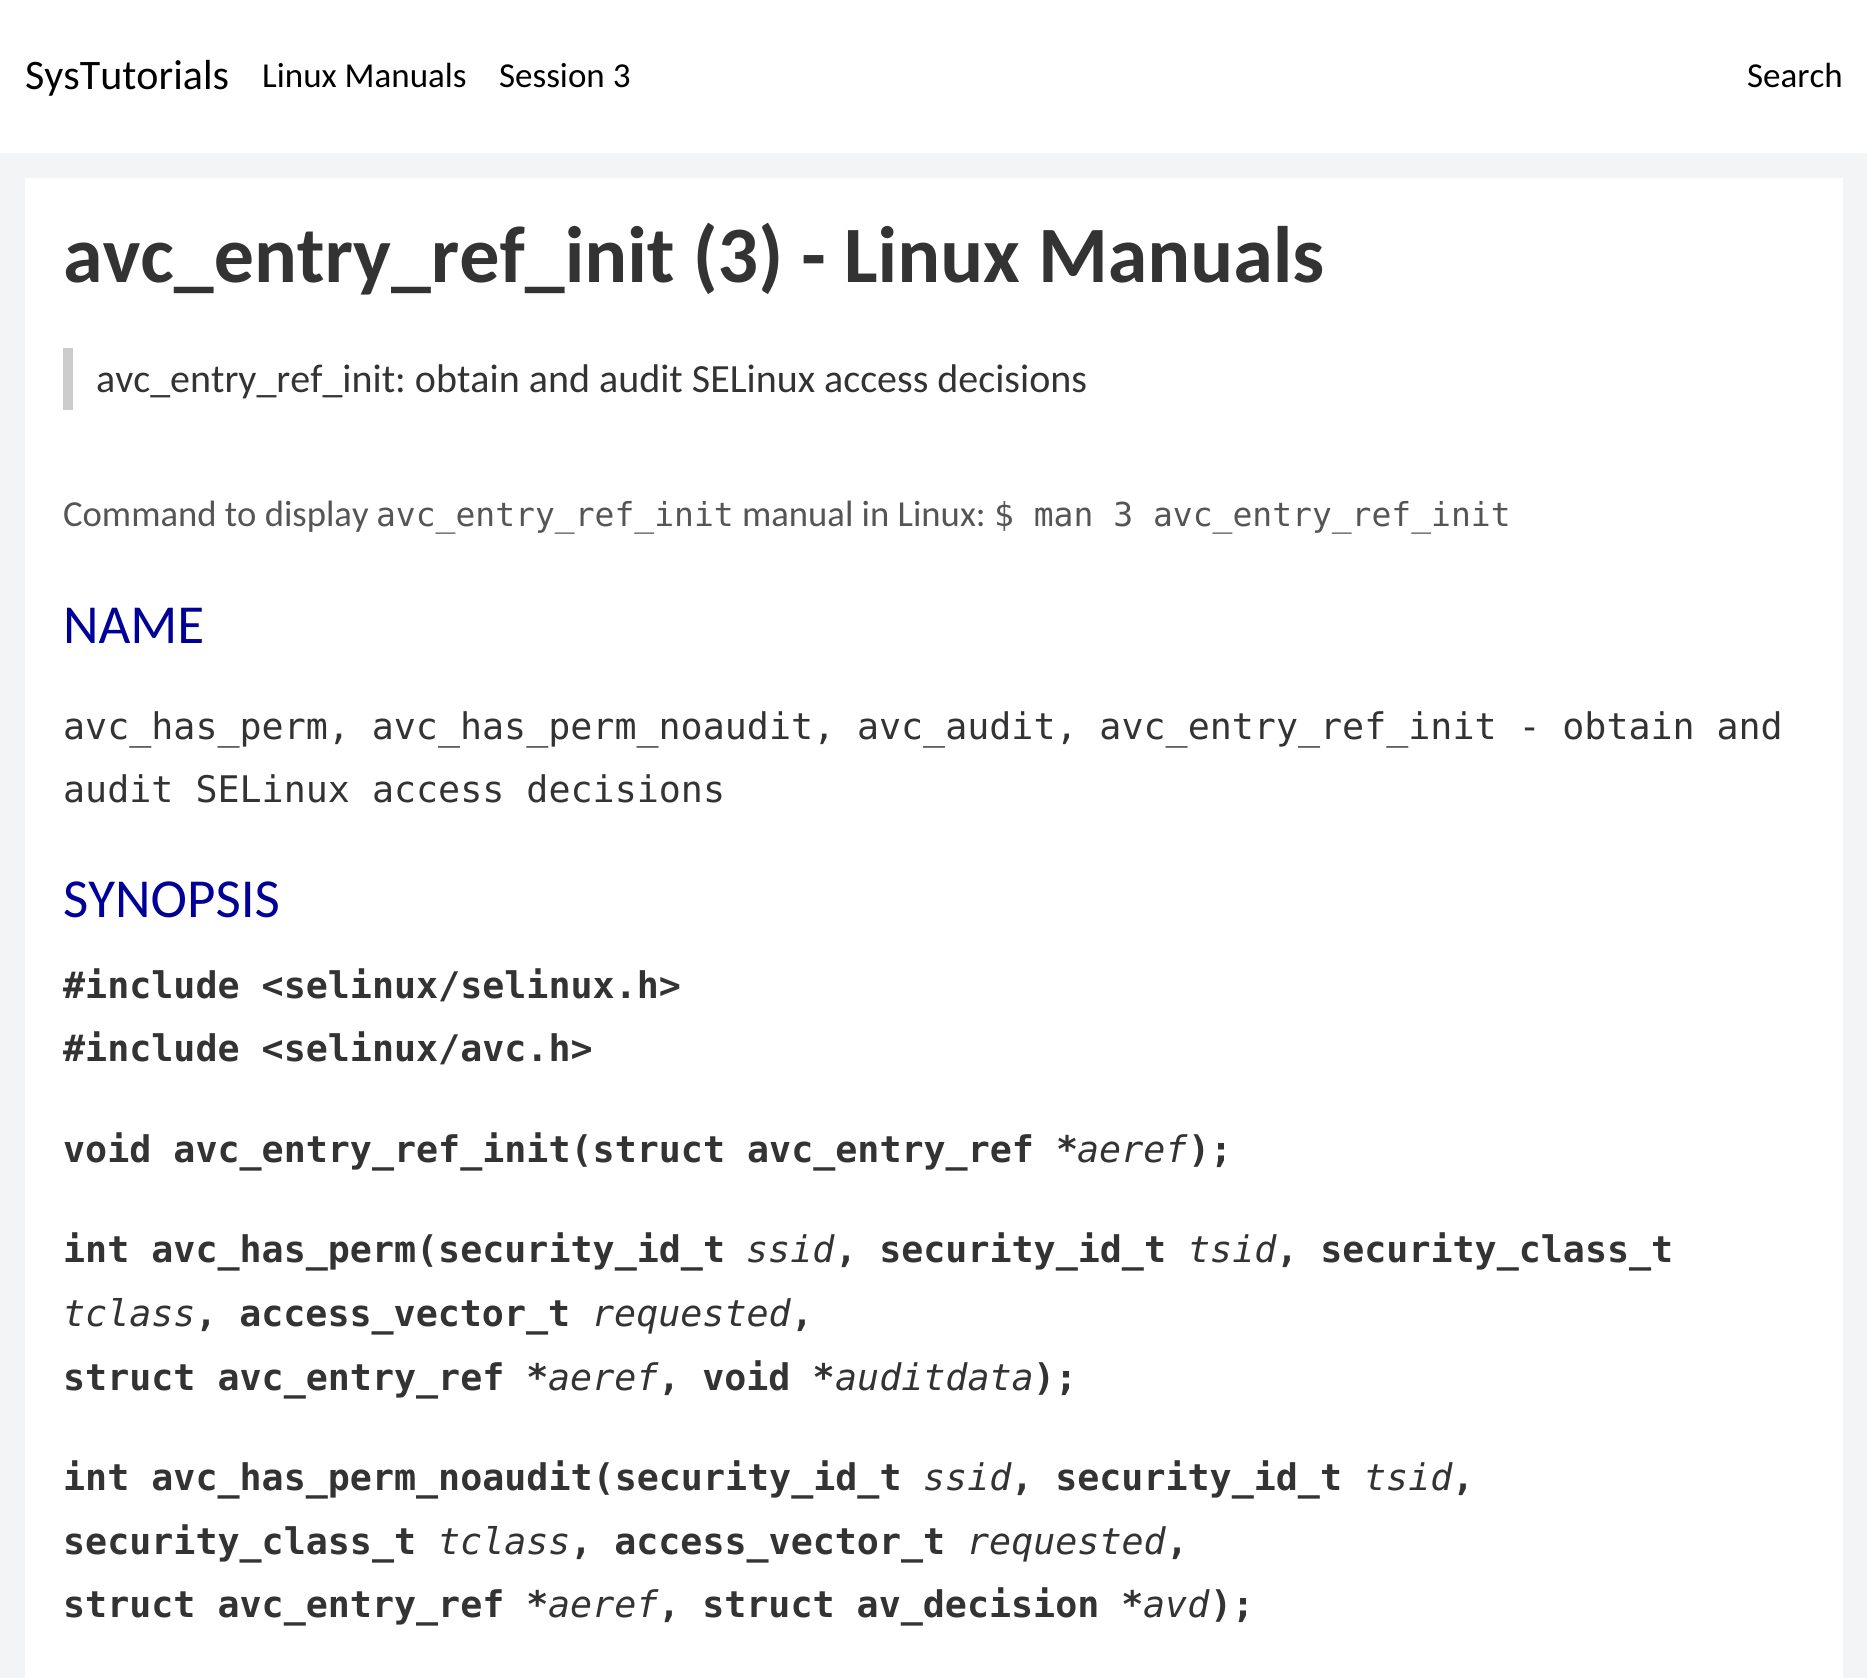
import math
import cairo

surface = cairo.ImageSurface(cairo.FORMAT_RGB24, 1867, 1678)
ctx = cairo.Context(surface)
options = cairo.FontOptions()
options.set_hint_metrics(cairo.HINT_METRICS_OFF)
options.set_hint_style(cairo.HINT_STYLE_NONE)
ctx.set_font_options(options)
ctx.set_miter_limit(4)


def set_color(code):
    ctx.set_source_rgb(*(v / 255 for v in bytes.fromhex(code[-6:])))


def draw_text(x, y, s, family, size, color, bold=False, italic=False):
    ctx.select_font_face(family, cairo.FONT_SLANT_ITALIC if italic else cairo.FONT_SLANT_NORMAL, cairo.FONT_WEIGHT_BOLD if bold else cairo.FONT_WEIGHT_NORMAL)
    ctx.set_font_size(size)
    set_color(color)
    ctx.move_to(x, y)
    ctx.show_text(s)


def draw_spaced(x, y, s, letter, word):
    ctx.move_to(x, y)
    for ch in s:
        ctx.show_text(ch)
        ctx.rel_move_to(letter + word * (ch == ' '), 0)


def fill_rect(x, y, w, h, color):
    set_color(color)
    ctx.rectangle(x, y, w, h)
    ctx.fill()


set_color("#f3f4f6")
ctx.paint()
fill_rect(0, 0, 1867, 153, "#ffffff")
draw_text(25, 89, "SysTutorials", "Carlito", 42, "#000000")
draw_text(262, 87, "Linux Manuals", "Carlito", 35, "#000000")
draw_text(499, 87, "Session 3", "Carlito", 35, "#000000")
draw_text(1747, 87, "Search", "Carlito", 35, "#000000")
fill_rect(25, 178, 1818, 1500, "#ffffff")
draw_text(63, 282, "avc_entry_ref_init (3) - Linux Manuals", "Carlito", 80, "#333333", bold=True)
fill_rect(63, 348, 10, 62, "#cccccc")
draw_text(96, 392, "avc_entry_ref_init: obtain and audit SELinux access decisions", "Carlito", 40, "#333333")
draw_text(63, 526, "Command to display", "Carlito", 36.65, "#555555")
draw_text(376, 526, "avc_entry_ref_init", "DejaVu Sans Mono", 33, "#555555")
draw_text(742, 526, "manual in Linux:", "Carlito", 36.65, "#555555")
draw_text(994, 526, "$ man 3 avc_entry_ref_init", "DejaVu Sans Mono", 33, "#555555")
draw_text(63, 643, "NAME", "Carlito", 55, "#000099")
ctx.select_font_face("DejaVu Sans Mono")
ctx.set_font_size(36.65)
set_color("#333333")
draw_spaced(63, 739, "avc_has_perm, avc_has_perm_noaudit, avc_audit, avc_entry_ref_init - obtain and", 0, -0.25)
draw_text(63, 802, "audit SELinux access decisions", "DejaVu Sans Mono", 36.65, "#333333")
draw_text(63, 917, "SYNOPSIS", "Carlito", 55, "#000099")
draw_text(63, 998, "#include <selinux/selinux.h>", "DejaVu Sans Mono", 36.65, "#333333", bold=True)
draw_text(63, 1061, "#include <selinux/avc.h>", "DejaVu Sans Mono", 36.65, "#333333", bold=True)
draw_text(63, 1162, "void avc_entry_ref_init(struct avc_entry_ref *", "DejaVu Sans Mono", 36.65, "#333333", bold=True)
draw_text(1077, 1162, "aeref", "DejaVu Sans Mono", 36.65, "#333333", italic=True)
draw_text(1188, 1162, ");", "DejaVu Sans Mono", 36.65, "#333333", bold=True)
draw_text(63, 1262, "int avc_has_perm(security_id_t", "DejaVu Sans Mono", 36.65, "#333333", bold=True)
draw_text(746, 1262, "ssid", "DejaVu Sans Mono", 36.65, "#333333", italic=True)
draw_text(835, 1262, ", security_id_t", "DejaVu Sans Mono", 36.65, "#333333", bold=True)
draw_text(1188, 1262, "tsid", "DejaVu Sans Mono", 36.65, "#333333", italic=True)
draw_text(1276, 1262, ", security_class_t", "DejaVu Sans Mono", 36.65, "#333333", bold=True)
draw_text(63, 1326, "tclass", "DejaVu Sans Mono", 36.65, "#333333", italic=True)
draw_text(195, 1326, ", access_vector_t", "DejaVu Sans Mono", 36.65, "#333333", bold=True)
draw_text(592, 1326, "requested", "DejaVu Sans Mono", 36.65, "#333333", italic=True)
draw_text(791, 1326, ",", "DejaVu Sans Mono", 36.65, "#333333", bold=True)
draw_text(63, 1390, "struct avc_entry_ref *", "DejaVu Sans Mono", 36.65, "#333333", bold=True)
draw_text(548, 1390, "aeref", "DejaVu Sans Mono", 36.65, "#333333", italic=True)
draw_text(658, 1390, ", void *", "DejaVu Sans Mono", 36.65, "#333333", bold=True)
draw_text(835, 1390, "auditdata", "DejaVu Sans Mono", 36.65, "#333333", italic=True)
draw_text(1033, 1390, ");", "DejaVu Sans Mono", 36.65, "#333333", bold=True)
draw_text(63, 1490, "int avc_has_perm_noaudit(security_id_t", "DejaVu Sans Mono", 36.65, "#333333", bold=True)
draw_text(923, 1490, "ssid", "DejaVu Sans Mono", 36.65, "#333333", italic=True)
draw_text(1011, 1490, ", security_id_t", "DejaVu Sans Mono", 36.65, "#333333", bold=True)
draw_text(1364, 1490, "tsid", "DejaVu Sans Mono", 36.65, "#333333", italic=True)
draw_text(1452, 1490, ",", "DejaVu Sans Mono", 36.65, "#333333", bold=True)
draw_text(63, 1554, "security_class_t", "DejaVu Sans Mono", 36.65, "#333333", bold=True)
draw_text(438, 1554, "tclass", "DejaVu Sans Mono", 36.65, "#333333", italic=True)
draw_text(570, 1554, ", access_vector_t", "DejaVu Sans Mono", 36.65, "#333333", bold=True)
draw_text(967, 1554, "requested", "DejaVu Sans Mono", 36.65, "#333333", italic=True)
draw_text(1166, 1554, ",", "DejaVu Sans Mono", 36.65, "#333333", bold=True)
draw_text(63, 1617, "struct avc_entry_ref *", "DejaVu Sans Mono", 36.65, "#333333", bold=True)
draw_text(548, 1617, "aeref", "DejaVu Sans Mono", 36.65, "#333333", italic=True)
draw_text(658, 1617, ", struct av_decision *", "DejaVu Sans Mono", 36.65, "#333333", bold=True)
draw_text(1143, 1617, "avd", "DejaVu Sans Mono", 36.65, "#333333", italic=True)
draw_text(1210, 1617, ");", "DejaVu Sans Mono", 36.65, "#333333", bold=True)
surface.write_to_png("output.png")
